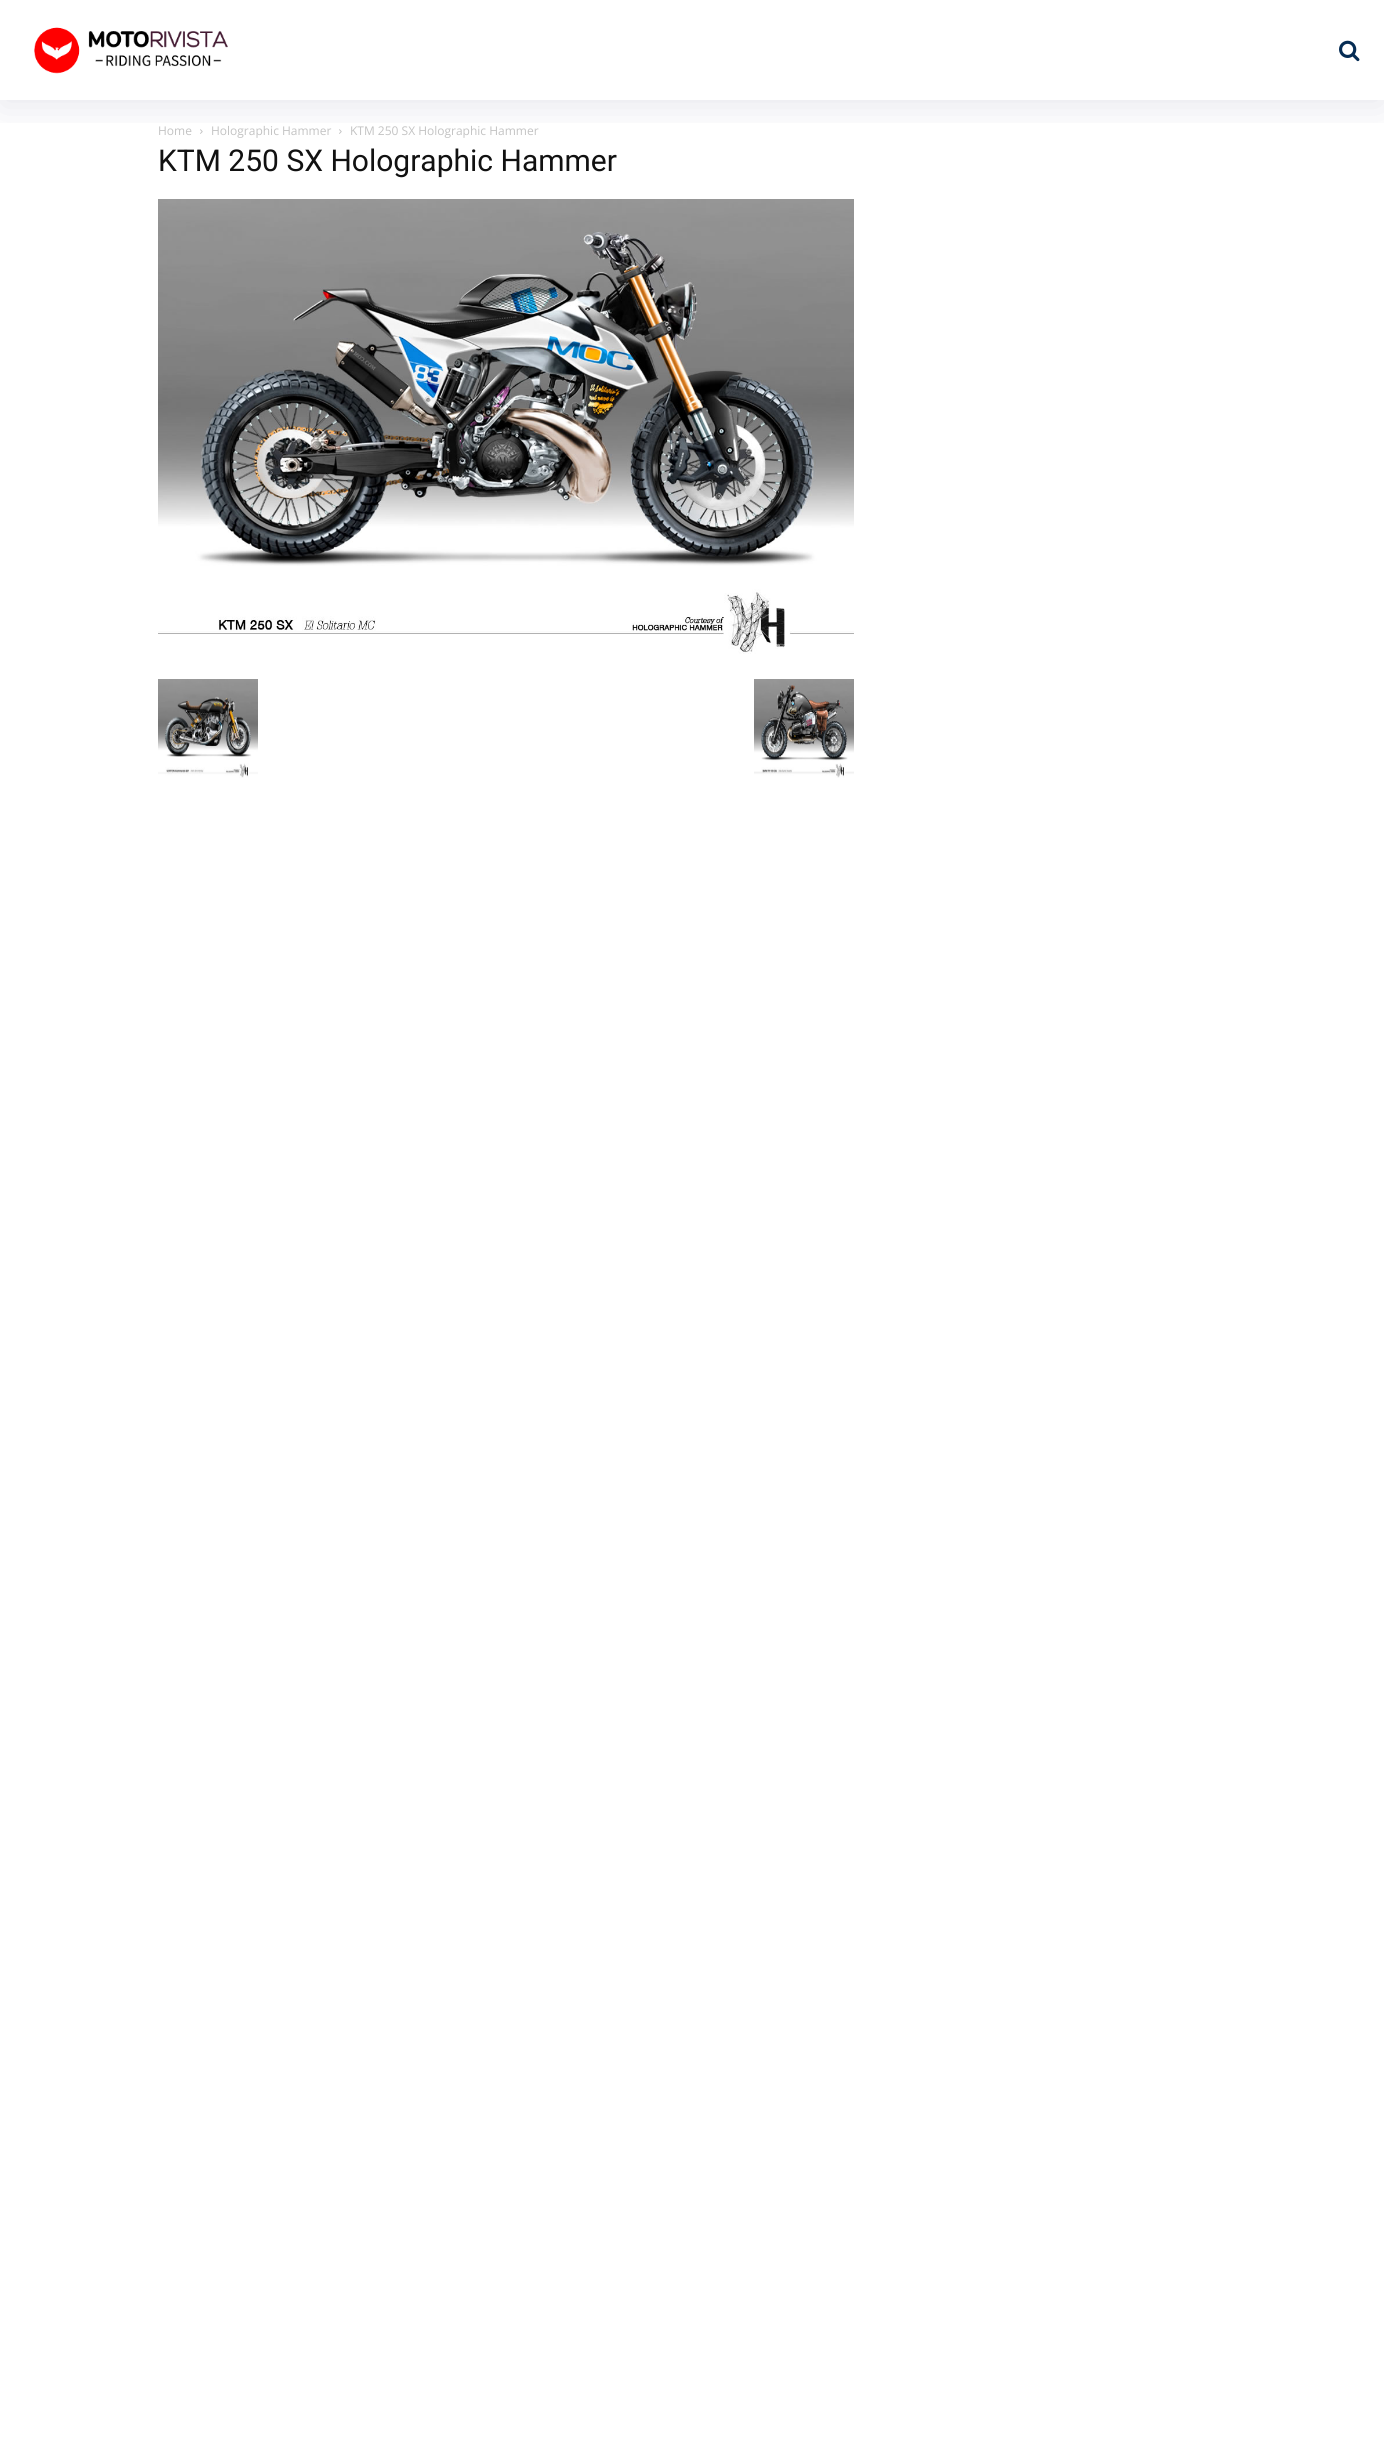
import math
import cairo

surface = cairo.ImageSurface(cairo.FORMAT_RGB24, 1384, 2437)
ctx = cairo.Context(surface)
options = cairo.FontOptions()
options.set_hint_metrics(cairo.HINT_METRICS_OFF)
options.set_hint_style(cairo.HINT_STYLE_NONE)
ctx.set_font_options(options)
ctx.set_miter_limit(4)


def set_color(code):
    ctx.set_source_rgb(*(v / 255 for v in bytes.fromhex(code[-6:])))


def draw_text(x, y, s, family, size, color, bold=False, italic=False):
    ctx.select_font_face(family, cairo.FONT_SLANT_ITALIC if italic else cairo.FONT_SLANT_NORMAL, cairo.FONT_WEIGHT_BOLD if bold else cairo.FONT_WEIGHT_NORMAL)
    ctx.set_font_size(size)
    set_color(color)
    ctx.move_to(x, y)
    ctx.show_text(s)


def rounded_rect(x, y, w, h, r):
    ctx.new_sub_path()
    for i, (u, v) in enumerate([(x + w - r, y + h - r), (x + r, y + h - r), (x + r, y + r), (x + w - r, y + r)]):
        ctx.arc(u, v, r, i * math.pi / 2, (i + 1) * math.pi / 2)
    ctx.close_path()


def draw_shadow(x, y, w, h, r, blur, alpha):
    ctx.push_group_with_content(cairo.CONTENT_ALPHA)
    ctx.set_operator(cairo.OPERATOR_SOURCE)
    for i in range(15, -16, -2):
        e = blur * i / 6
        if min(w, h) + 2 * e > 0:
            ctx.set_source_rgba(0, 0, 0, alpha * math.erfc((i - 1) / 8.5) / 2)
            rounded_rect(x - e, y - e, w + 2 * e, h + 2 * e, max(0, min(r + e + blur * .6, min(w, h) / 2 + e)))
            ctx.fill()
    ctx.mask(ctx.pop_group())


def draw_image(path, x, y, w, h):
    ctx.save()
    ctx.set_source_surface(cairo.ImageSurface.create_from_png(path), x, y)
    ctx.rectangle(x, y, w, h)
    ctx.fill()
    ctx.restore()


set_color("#ffffff")
ctx.paint()
draw_image("assets/img1.png", 34, 27, 194, 47)
draw_image("assets/img3.png", 200, 129, 3, 5)
draw_image("assets/img3.png", 339, 129, 3, 5)
ctx.save()
ctx.rectangle(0, 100, 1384, 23)
ctx.clip()
set_color("#020247")
draw_shadow(0, 6, 1384, 100, 0, 20, 0.1)
ctx.restore()
draw_image("assets/img2.png", 1339, 40, 21, 22)
draw_text(158, 135, "Home", "Open Sans", 12, "#c3c3c3")
draw_text(211, 135, "Holographic Hammer", "Open Sans", 12, "#c3c3c3")
draw_text(350, 135, "KTM 250 SX Holographic Hammer", "Open Sans", 12, "#c3c3c3")
draw_text(158, 171, "KTM 250 SX Holographic Hammer", "Roboto", 30, "#111111")
draw_image("assets/img4.png", 158, 199, 696, 455)
draw_image("assets/img5.png", 158, 679, 100, 99)
draw_image("assets/img6.png", 754, 679, 100, 99)
surface.write_to_png("output.png")
